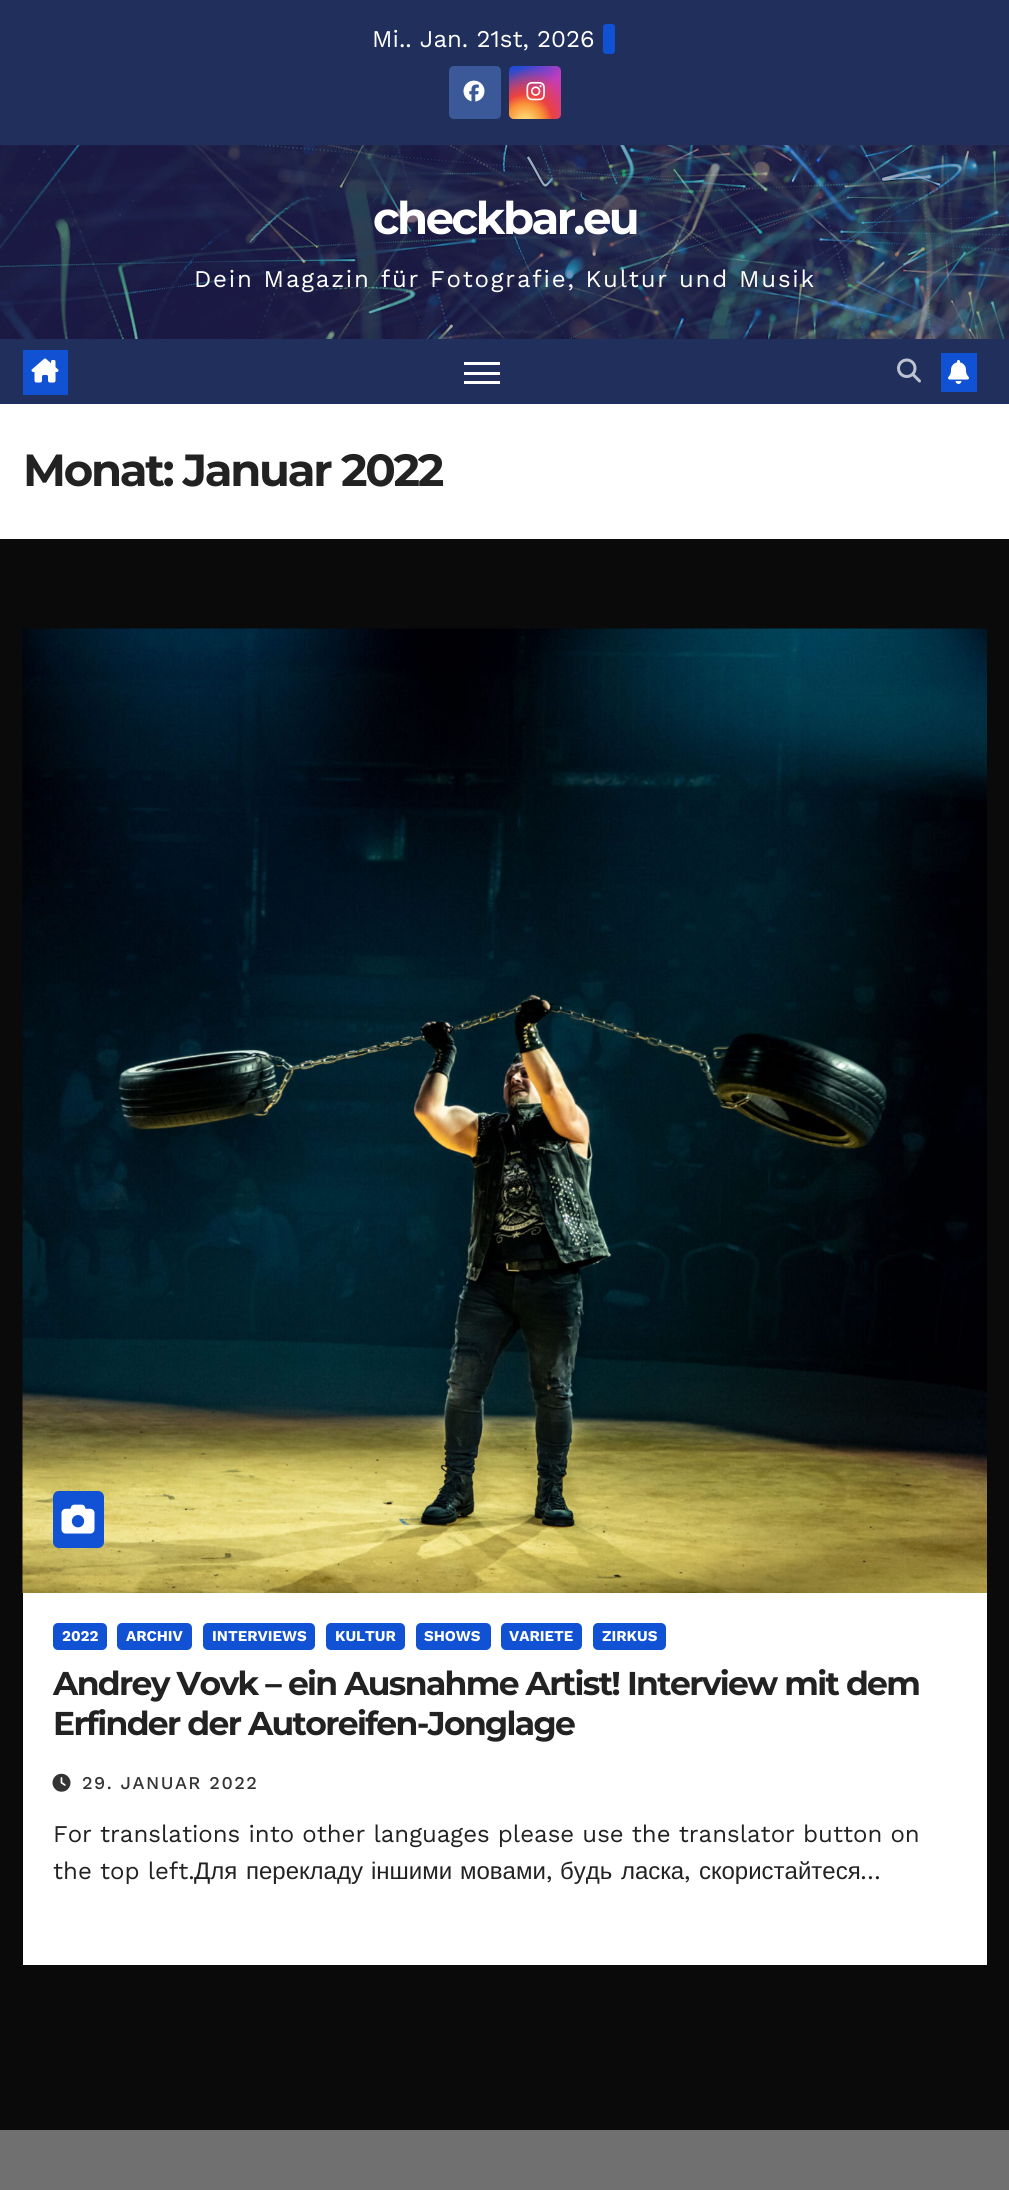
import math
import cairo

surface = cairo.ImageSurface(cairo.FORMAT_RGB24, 1009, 2190)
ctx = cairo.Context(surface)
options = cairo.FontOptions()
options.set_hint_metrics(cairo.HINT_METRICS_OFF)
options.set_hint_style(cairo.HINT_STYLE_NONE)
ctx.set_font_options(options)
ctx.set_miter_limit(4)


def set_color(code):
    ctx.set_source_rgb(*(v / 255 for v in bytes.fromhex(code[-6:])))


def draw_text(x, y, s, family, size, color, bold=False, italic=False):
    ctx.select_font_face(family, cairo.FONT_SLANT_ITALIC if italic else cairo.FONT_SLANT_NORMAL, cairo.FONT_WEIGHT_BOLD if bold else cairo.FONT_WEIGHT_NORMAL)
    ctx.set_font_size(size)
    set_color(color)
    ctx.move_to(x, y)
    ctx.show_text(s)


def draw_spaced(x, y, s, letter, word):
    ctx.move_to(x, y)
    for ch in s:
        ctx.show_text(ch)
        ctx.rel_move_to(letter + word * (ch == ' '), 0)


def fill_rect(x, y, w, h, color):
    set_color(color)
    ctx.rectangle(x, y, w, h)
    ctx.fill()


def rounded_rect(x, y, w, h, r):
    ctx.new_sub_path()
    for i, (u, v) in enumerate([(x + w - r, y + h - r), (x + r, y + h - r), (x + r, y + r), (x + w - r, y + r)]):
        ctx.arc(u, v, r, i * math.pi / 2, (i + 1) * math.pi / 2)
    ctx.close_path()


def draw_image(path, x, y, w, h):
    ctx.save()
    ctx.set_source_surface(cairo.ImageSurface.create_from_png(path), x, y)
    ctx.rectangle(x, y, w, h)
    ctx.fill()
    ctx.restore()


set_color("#0a0a0a")
ctx.paint()
fill_rect(0, 0, 1009, 146, "#202f5b")
draw_text(372, 47, "Mi.. Jan. 21st, 2026", "Work Sans", 24, "#ffffff")
set_color("#1151d3")
rounded_rect(603, 24, 12, 30, 3)
ctx.fill()
set_color("#3b5998")
rounded_rect(449, 66, 52, 53, 5)
ctx.fill()
draw_image("assets/img1.png", 463, 80, 22, 22)
gradient = cairo.LinearGradient(509, 66, 561, 119)
gradient.add_color_stop_rgba(0.12, 0.137, 0.294, 0.843, 1)
gradient.add_color_stop_rgba(0.58, 0.765, 0.235, 0.745, 1)
ctx.set_source(gradient)
rounded_rect(509, 66, 52, 53, 5)
ctx.fill()
gradient = cairo.RadialGradient(525, 122, 0, 525, 122, 66)
gradient.add_color_stop_rgba(0, 1, 0.882, 0.49, 1)
gradient.add_color_stop_rgba(0.1, 1, 0.804, 0.412, 1)
gradient.add_color_stop_rgba(0.28, 0.98, 0.569, 0.216, 1)
gradient.add_color_stop_rgba(0.42, 0.922, 0.255, 0.255, 1)
gradient.add_color_stop_rgba(0.82, 0.922, 0.255, 0.255, 0)
ctx.set_source(gradient)
rounded_rect(509, 66, 52, 53, 5)
ctx.fill()
draw_image("assets/img2.png", 526, 81, 19, 20)
draw_image("assets/img3.png", 0, 145, 1009, 194)
ctx.select_font_face("Montserrat", cairo.FONT_SLANT_NORMAL, cairo.FONT_WEIGHT_BOLD)
ctx.set_font_size(45)
set_color("#ffffff")
draw_spaced(373, 234, "checkbar.eu", -2.5, 0)
ctx.select_font_face("Work Sans")
ctx.set_font_size(24)
draw_spaced(194, 287, "Dein Magazin für Fotografie, Kultur und Musik", 1.8, 0)
fill_rect(0, 339, 1009, 65, "#202f5b")
fill_rect(23, 350, 45, 45, "#1151d3")
draw_image("assets/img4.png", 31, 358, 28, 25)
fill_rect(464, 362, 36, 3, "#ffffff")
fill_rect(464, 372, 36, 3, "#ffffff")
fill_rect(464, 381, 36, 3, "#ffffff")
draw_image("assets/img5.png", 897, 358, 24, 25)
fill_rect(941, 353, 36, 39, "#1151d3")
draw_image("assets/img6.png", 948, 360, 21, 24)
fill_rect(0, 404, 1009, 135, "#ffffff")
ctx.select_font_face("Montserrat", cairo.FONT_SLANT_NORMAL, cairo.FONT_WEIGHT_BOLD)
ctx.set_font_size(45)
set_color("#222222")
draw_spaced(23, 486, "Monat: Januar 2022", -2.25, 0)
fill_rect(23, 1593, 964, 372, "#ffffff")
draw_image("assets/img7.png", 22, 628, 965, 965)
set_color("#1151d3")
rounded_rect(53, 1491, 51, 57, 6)
ctx.fill()
draw_image("assets/img8.png", 61, 1504, 34, 30)
rounded_rect(53, 1623, 54, 27, 5)
ctx.fill()
draw_text(62, 1641, "2022", "Work Sans", 15, "#ffffff", bold=True)
set_color("#1151d3")
rounded_rect(117, 1623, 75, 27, 5)
ctx.fill()
draw_text(126, 1641, "ARCHIV", "Work Sans", 15, "#ffffff", bold=True)
set_color("#1151d3")
rounded_rect(203, 1623, 112, 27, 5)
ctx.fill()
draw_text(212, 1641, "INTERVIEWS", "Work Sans", 15, "#ffffff", bold=True)
set_color("#1151d3")
rounded_rect(326, 1623, 79, 27, 5)
ctx.fill()
draw_text(335, 1641, "KULTUR", "Work Sans", 15, "#ffffff", bold=True)
set_color("#1151d3")
rounded_rect(416, 1623, 75, 27, 5)
ctx.fill()
draw_text(424, 1641, "SHOWS", "Work Sans", 15, "#ffffff", bold=True)
set_color("#1151d3")
rounded_rect(501, 1623, 81, 27, 5)
ctx.fill()
draw_text(509, 1641, "VARIETE", "Work Sans", 15, "#ffffff", bold=True)
set_color("#1151d3")
rounded_rect(593, 1623, 73, 27, 5)
ctx.fill()
draw_text(602, 1641, "ZIRKUS", "Work Sans", 15, "#ffffff", bold=True)
ctx.select_font_face("Montserrat", cairo.FONT_SLANT_NORMAL, cairo.FONT_WEIGHT_BOLD)
ctx.set_font_size(33)
set_color("#222222")
draw_spaced(53, 1695, "Andrey Vovk – ein Ausnahme Artist! Interview mit dem", -1.65, 0)
draw_spaced(53, 1735, "Erfinder der Autoreifen-Jonglage", -1.65, 0)
draw_image("assets/img9.png", 52, 1773, 19, 19)
ctx.select_font_face("Work Sans Medium")
ctx.set_font_size(18)
set_color("#333333")
draw_spaced(82, 1789, "29. JANUAR 2022", 1.5, 0)
draw_text(53, 1842, "For translations into other languages please use the translator button on", "Work Sans", 24, "#222222")
draw_text(53, 1879, "the top left.", "Work Sans", 24, "#222222")
draw_text(194, 1879, "Для", "Liberation Sans", 24, "#222222")
draw_text(246, 1879, "перекладу", "Liberation Sans", 24, "#222222")
draw_text(371, 1879, "іншими", "Liberation Sans", 24, "#222222")
draw_text(460, 1879, "мовами", "Liberation Sans", 24, "#222222")
draw_text(546, 1879, ",", "Work Sans", 24, "#222222")
draw_text(560, 1879, "будь", "Liberation Sans", 24, "#222222")
draw_text(621, 1879, "ласка", "Liberation Sans", 24, "#222222")
draw_text(684, 1879, ",", "Work Sans", 24, "#222222")
draw_text(699, 1879, "скористайтеся", "Liberation Sans", 24, "#222222")
draw_text(860, 1879, "…", "Work Sans", 24, "#222222")
fill_rect(0, 2130, 1009, 60, "#707070")
surface.write_to_png("output.png")
